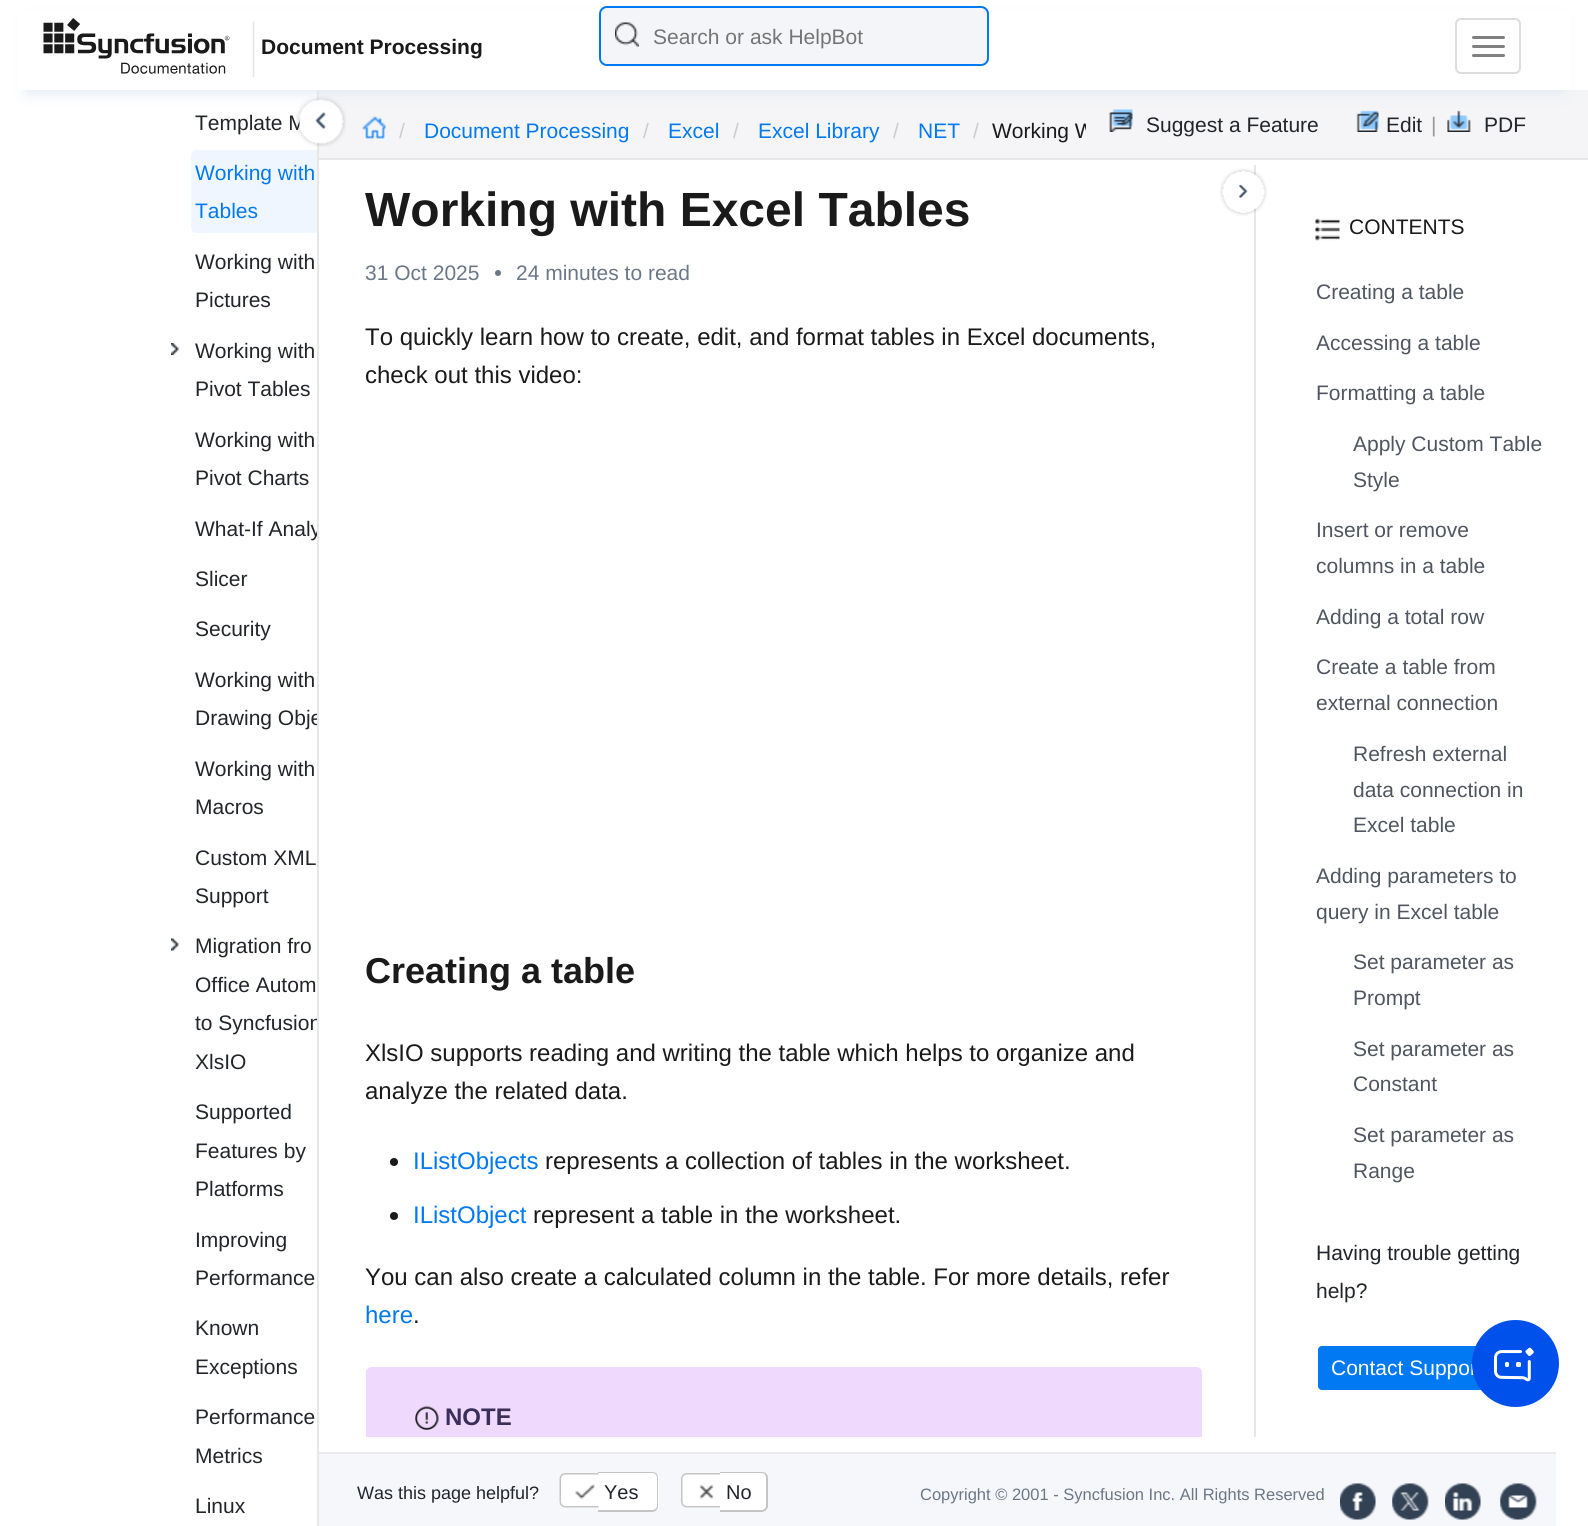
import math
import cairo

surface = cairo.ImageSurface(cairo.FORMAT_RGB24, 1588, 1526)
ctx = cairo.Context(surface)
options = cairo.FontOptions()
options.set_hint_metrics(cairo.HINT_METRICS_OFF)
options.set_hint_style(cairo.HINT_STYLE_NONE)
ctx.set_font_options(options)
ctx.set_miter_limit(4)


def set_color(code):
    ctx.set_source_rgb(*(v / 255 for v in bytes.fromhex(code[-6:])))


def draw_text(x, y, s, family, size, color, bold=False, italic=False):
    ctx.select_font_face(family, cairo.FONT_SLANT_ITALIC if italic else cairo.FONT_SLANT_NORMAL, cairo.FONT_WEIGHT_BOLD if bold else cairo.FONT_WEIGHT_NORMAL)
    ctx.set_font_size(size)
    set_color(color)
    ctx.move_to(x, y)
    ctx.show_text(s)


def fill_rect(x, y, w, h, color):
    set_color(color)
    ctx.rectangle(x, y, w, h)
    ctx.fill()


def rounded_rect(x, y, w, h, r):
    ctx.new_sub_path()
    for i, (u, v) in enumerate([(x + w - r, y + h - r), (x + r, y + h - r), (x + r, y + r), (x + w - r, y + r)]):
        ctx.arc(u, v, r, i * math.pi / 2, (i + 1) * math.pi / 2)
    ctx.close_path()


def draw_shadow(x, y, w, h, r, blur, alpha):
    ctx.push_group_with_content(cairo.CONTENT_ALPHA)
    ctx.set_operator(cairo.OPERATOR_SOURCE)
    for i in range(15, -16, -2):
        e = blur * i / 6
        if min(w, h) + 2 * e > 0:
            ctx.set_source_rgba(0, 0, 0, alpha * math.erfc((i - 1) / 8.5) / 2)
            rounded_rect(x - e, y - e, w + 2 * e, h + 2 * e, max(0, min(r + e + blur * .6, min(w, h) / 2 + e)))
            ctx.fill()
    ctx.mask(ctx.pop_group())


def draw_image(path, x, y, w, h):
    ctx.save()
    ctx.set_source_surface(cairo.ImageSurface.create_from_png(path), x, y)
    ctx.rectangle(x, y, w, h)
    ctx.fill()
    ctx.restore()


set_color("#ffffff")
ctx.paint()
fill_rect(319, 90, 1269, 68, "#f5f5f7")
draw_image("assets/img3.png", 362, 116, 24, 23)
draw_image("assets/img4.png", 1109, 109, 24, 23)
draw_image("assets/img5.png", 1356, 110, 23, 22)
draw_image("assets/img6.png", 1447, 110, 24, 22)
fill_rect(317, 90, 2, 1436, "#e7e7e7")
draw_text(195, 130, "Template M", "Liberation Sans", 21, "#22252a")
draw_image("assets/img9.png", 296, 96, 50, 51)
set_color("#e2eaf5")
draw_shadow(27, 21, 1535, 72, 0, 8, 1)
fill_rect(18, 10, 1553, 80, "#ffffff")
draw_image("assets/img1.png", 43, 18, 212, 60)
draw_text(261, 54, "Document Processing", "Liberation Sans", 21, "#1a1a1a", bold=True)
set_color("#f4f5f8")
rounded_rect(599, 6, 390, 60, 8)
ctx.fill()
draw_image("assets/img2.png", 615, 22, 24, 25)
rounded_rect(600, 7, 388, 58, 7)
set_color("#0079f3")
ctx.stroke()
draw_text(653, 44, "Search or ask HelpBot", "Liberation Sans", 21, "#757575")
rounded_rect(1456, 19, 64, 54, 5)
set_color("#dddddd")
ctx.stroke()
set_color("#808080")
rounded_rect(1472, 36, 33, 3, 1.5)
ctx.fill()
rounded_rect(1472, 45, 33, 3, 1.5)
ctx.fill()
rounded_rect(1472, 54, 33, 3, 1.5)
ctx.fill()
fill_rect(319, 158, 1269, 2, "#e7e7e7")
draw_text(399, 138, "/", "Liberation Sans", 21, "#cccccc")
draw_text(424, 138, "Document Processing", "Liberation Sans", 21, "#0079f3")
draw_text(643, 138, "/", "Liberation Sans", 21, "#cccccc")
draw_text(668, 138, "Excel", "Liberation Sans", 21, "#0079f3")
draw_text(733, 138, "/", "Liberation Sans", 21, "#cccccc")
draw_text(758, 138, "Excel Library", "Liberation Sans", 21, "#0079f3")
draw_text(893, 138, "/", "Liberation Sans", 21, "#cccccc")
draw_text(918, 138, "NET", "Liberation Sans", 21, "#0079f3")
draw_text(973, 138, "/", "Liberation Sans", 21, "#cccccc")
ctx.save()
ctx.rectangle(333, 90, 753, 62)
ctx.clip()
draw_text(992, 138, "Working W", "Liberation Sans", 21, "#1a1a1a")
ctx.restore()
draw_text(1146, 132, "Suggest a Feature", "Liberation Sans", 21, "#22252a")
draw_text(1386, 132, "Edit", "Liberation Sans", 21, "#22252a")
draw_text(1431, 132, "|", "Liberation Sans", 21, "#979797")
draw_text(1484, 132, "PDF", "Liberation Sans", 21, "#22252a")
set_color("#eff6ff")
ctx.new_path()
ctx.move_to(197, 150)
ctx.line_to(317, 150)
ctx.line_to(317, 233)
ctx.line_to(197, 233)
ctx.curve_to(193.5, 233, 191, 230.5, 191, 227)
ctx.line_to(191, 156)
ctx.curve_to(191, 152.5, 193.5, 150, 197, 150)
ctx.close_path()
ctx.fill()
draw_text(195, 180, "Working with", "Liberation Sans", 21, "#0079f3")
draw_text(195, 218, "Tables", "Liberation Sans", 21, "#0079f3")
draw_text(195, 269, "Working with", "Liberation Sans", 21, "#22252a")
draw_text(195, 307, "Pictures", "Liberation Sans", 21, "#22252a")
draw_image("assets/img7.png", 171, 343, 9, 12)
draw_text(195, 358, "Working with", "Liberation Sans", 21, "#22252a")
draw_text(195, 396, "Pivot Tables", "Liberation Sans", 21, "#22252a")
draw_text(195, 447, "Working with", "Liberation Sans", 21, "#22252a")
draw_text(195, 485, "Pivot Charts", "Liberation Sans", 21, "#22252a")
ctx.save()
ctx.rectangle(0, 0, 317, 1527)
ctx.clip()
draw_text(195, 536, "What-If Analy", "Liberation Sans", 21, "#22252a")
ctx.restore()
draw_text(195, 586, "Slicer", "Liberation Sans", 21, "#22252a")
draw_text(195, 636, "Security", "Liberation Sans", 21, "#22252a")
draw_text(195, 687, "Working with", "Liberation Sans", 21, "#22252a")
ctx.save()
ctx.rectangle(0, 0, 317, 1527)
ctx.clip()
draw_text(195, 725, "Drawing Obje", "Liberation Sans", 21, "#22252a")
ctx.restore()
draw_text(195, 776, "Working with", "Liberation Sans", 21, "#22252a")
draw_text(195, 814, "Macros", "Liberation Sans", 21, "#22252a")
draw_text(195, 865, "Custom XML", "Liberation Sans", 21, "#22252a")
draw_text(195, 903, "Support", "Liberation Sans", 21, "#22252a")
draw_image("assets/img8.png", 171, 938, 9, 13)
draw_text(195, 953, "Migration fro", "Liberation Sans", 21, "#22252a")
draw_text(195, 992, "Office Autom", "Liberation Sans", 21, "#22252a")
ctx.save()
ctx.rectangle(0, 0, 317, 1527)
ctx.clip()
draw_text(195, 1030, "to Syncfusion", "Liberation Sans", 21, "#22252a")
ctx.restore()
draw_text(195, 1069, "XlsIO", "Liberation Sans", 21, "#22252a")
draw_text(195, 1119, "Supported", "Liberation Sans", 21, "#22252a")
draw_text(195, 1158, "Features by", "Liberation Sans", 21, "#22252a")
draw_text(195, 1196, "Platforms", "Liberation Sans", 21, "#22252a")
draw_text(195, 1247, "Improving", "Liberation Sans", 21, "#22252a")
draw_text(195, 1285, "Performance", "Liberation Sans", 21, "#22252a")
draw_text(195, 1335, "Known", "Liberation Sans", 21, "#22252a")
draw_text(195, 1374, "Exceptions", "Liberation Sans", 21, "#22252a")
draw_text(195, 1424, "Performance", "Liberation Sans", 21, "#22252a")
draw_text(195, 1463, "Metrics", "Liberation Sans", 21, "#22252a")
draw_text(195, 1513, "Linux", "Liberation Sans", 21, "#22252a")
fill_rect(1254, 165, 2, 1272, "#e7e7e7")
draw_text(365, 226, "Working with Excel Tables", "Liberation Sans", 48, "#1a1a1a", bold=True)
draw_text(365, 280, "31 Oct 2025", "Liberation Sans", 21, "#6c7786")
ctx.new_path()
ctx.arc(498, 273, 3, 0, 2 * math.pi)
ctx.fill()
draw_text(516, 280, "24 minutes to read", "Liberation Sans", 21, "#6c7786")
draw_text(365, 345, "To quickly learn how to create, edit, and format tables in Excel documents,", "Liberation Sans", 24, "#1a1a1a")
draw_text(365, 383, "check out this video:", "Liberation Sans", 24, "#1a1a1a")
draw_text(365, 983, "Creating a table", "Liberation Sans", 36, "#1a1a1a", bold=True)
draw_text(365, 1061, "XlsIO supports reading and writing the table which helps to organize and", "Liberation Sans", 24, "#1a1a1a")
draw_text(365, 1099, "analyze the related data.", "Liberation Sans", 24, "#1a1a1a")
ctx.new_path()
ctx.arc(394, 1162, 4, 0, 2 * math.pi)
ctx.fill()
draw_text(413, 1169, "IListObjects", "Liberation Sans", 24, "#0079f3")
draw_text(545, 1169, "represents a collection of tables in the worksheet.", "Liberation Sans", 24, "#1a1a1a")
ctx.new_path()
ctx.arc(394, 1216, 4, 0, 2 * math.pi)
ctx.fill()
draw_text(413, 1223, "IListObject", "Liberation Sans", 24, "#0079f3")
draw_text(533, 1223, "represent a table in the worksheet.", "Liberation Sans", 24, "#1a1a1a")
draw_text(365, 1285, "You can also create a calculated column in the table. For more details, refer", "Liberation Sans", 24, "#1a1a1a")
draw_text(365, 1323, "here", "Liberation Sans", 24, "#0079f3")
draw_text(413, 1323, ".", "Liberation Sans", 24, "#1a1a1a")
set_color("#efd9fd")
ctx.new_path()
ctx.move_to(372, 1367)
ctx.line_to(1196, 1367)
ctx.curve_to(1199.5, 1367, 1202, 1369.5, 1202, 1373)
ctx.line_to(1202, 1437)
ctx.line_to(366, 1437)
ctx.line_to(366, 1373)
ctx.curve_to(366, 1369.5, 368.5, 1367, 372, 1367)
ctx.close_path()
ctx.fill()
ctx.save()
ctx.rectangle(366, 165, 888, 1272)
ctx.clip()
rounded_rect(367, 1368, 834, 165, 5)
ctx.stroke()
ctx.restore()
draw_image("assets/img10.png", 415, 1406, 24, 24)
draw_text(445, 1425, "NOTE", "Liberation Sans", 24, "#3b2e58", bold=True)
draw_image("assets/img11.png", 1220, 168, 47, 48)
draw_image("assets/img12.png", 1315, 218, 25, 23)
draw_text(1349, 234, "CONTENTS", "Liberation Sans", 21, "#1a1a1a")
draw_text(1316, 299, "Creating a table", "Liberation Sans", 21, "#50565f")
draw_text(1316, 350, "Accessing a table", "Liberation Sans", 21, "#50565f")
draw_text(1316, 400, "Formatting a table", "Liberation Sans", 21, "#50565f")
draw_text(1353, 451, "Apply Custom Table", "Liberation Sans", 21, "#50565f")
draw_text(1353, 487, "Style", "Liberation Sans", 21, "#50565f")
draw_text(1316, 537, "Insert or remove", "Liberation Sans", 21, "#50565f")
draw_text(1316, 573, "columns in a table", "Liberation Sans", 21, "#50565f")
draw_text(1316, 624, "Adding a total row", "Liberation Sans", 21, "#50565f")
draw_text(1316, 674, "Create a table from", "Liberation Sans", 21, "#50565f")
draw_text(1316, 710, "external connection", "Liberation Sans", 21, "#50565f")
draw_text(1353, 761, "Refresh external", "Liberation Sans", 21, "#50565f")
draw_text(1353, 797, "data connection in", "Liberation Sans", 21, "#50565f")
draw_text(1353, 832, "Excel table", "Liberation Sans", 21, "#50565f")
draw_text(1316, 883, "Adding parameters to", "Liberation Sans", 21, "#50565f")
draw_text(1316, 919, "query in Excel table", "Liberation Sans", 21, "#50565f")
draw_text(1353, 969, "Set parameter as", "Liberation Sans", 21, "#50565f")
draw_text(1353, 1005, "Prompt", "Liberation Sans", 21, "#50565f")
draw_text(1353, 1056, "Set parameter as", "Liberation Sans", 21, "#50565f")
draw_text(1353, 1091, "Constant", "Liberation Sans", 21, "#50565f")
draw_text(1353, 1142, "Set parameter as", "Liberation Sans", 21, "#50565f")
draw_text(1353, 1178, "Range", "Liberation Sans", 21, "#50565f")
draw_text(1316, 1260, "Having trouble getting", "Liberation Sans", 21, "#22252a")
draw_text(1316, 1298, "help?", "Liberation Sans", 21, "#22252a")
set_color("#0079f3")
rounded_rect(1317, 1345, 179, 46, 5)
ctx.fill_preserve()
set_color("#ffffff")
ctx.stroke()
draw_text(1331, 1375, "Contact Suppor", "Liberation Sans", 21, "#ffffff")
set_color("#0050eb")
ctx.new_path()
ctx.arc(1515.5, 1363.5, 43.5, 0, 2 * math.pi)
ctx.fill()
draw_image("assets/img13.png", 1494, 1347, 40, 35)
fill_rect(319, 1454, 1237, 72, "#f5f7fa")
fill_rect(319, 1452, 1237, 2, "#eaeaea")
draw_text(357, 1499, "Was this page helpful?", "Liberation Sans", 18, "#22252a")
set_color("#ffffff")
ctx.new_path()
ctx.move_to(566, 1473)
ctx.line_to(599, 1473)
ctx.line_to(599, 1508)
ctx.line_to(566, 1508)
ctx.curve_to(562.5, 1508, 560, 1505.5, 560, 1502)
ctx.line_to(560, 1479)
ctx.curve_to(560, 1475.5, 562.5, 1473, 566, 1473)
ctx.close_path()
ctx.fill()
set_color("#c5c5c5")
ctx.set_fill_rule(cairo.FILL_RULE_EVEN_ODD)
ctx.new_path()
ctx.move_to(565.5, 1473)
ctx.line_to(598.5, 1473)
ctx.line_to(598.5, 1507.5)
ctx.line_to(565.5, 1507.5)
ctx.curve_to(562, 1507.5, 559.5, 1505, 559.5, 1501.5)
ctx.line_to(559.5, 1479)
ctx.curve_to(559.5, 1475.5, 562, 1473, 565.5, 1473)
ctx.close_path()
ctx.move_to(565.5, 1474.5)
ctx.line_to(598.5, 1474.5)
ctx.line_to(598.5, 1506)
ctx.line_to(565.5, 1506)
ctx.curve_to(563, 1506, 561, 1504, 561, 1501.5)
ctx.line_to(561, 1479)
ctx.curve_to(561, 1476.5, 563, 1474.5, 565.5, 1474.5)
ctx.close_path()
ctx.fill()
set_color("#ffffff")
ctx.new_path()
ctx.move_to(599, 1472)
ctx.line_to(653, 1472)
ctx.curve_to(656.5, 1472, 659, 1474.5, 659, 1478)
ctx.line_to(659, 1506)
ctx.curve_to(659, 1509.5, 656.5, 1512, 653, 1512)
ctx.line_to(599, 1512)
ctx.close_path()
ctx.fill()
set_color("#c5c5c5")
ctx.new_path()
ctx.move_to(598, 1472)
ctx.line_to(652, 1472)
ctx.curve_to(656, 1472, 658, 1474, 658, 1478)
ctx.line_to(658, 1506)
ctx.curve_to(658, 1509, 656, 1512, 652, 1512)
ctx.line_to(598, 1512)
ctx.close_path()
ctx.move_to(598, 1473)
ctx.line_to(652, 1473)
ctx.curve_to(655, 1473, 657, 1475, 657, 1478)
ctx.line_to(657, 1506)
ctx.curve_to(657, 1508, 655, 1510, 652, 1510)
ctx.line_to(598, 1510)
ctx.close_path()
ctx.fill()
draw_image("assets/img14.png", 575, 1484, 20, 15)
draw_text(604, 1499, "Yes", "Liberation Sans", 20, "#22252a")
set_color("#ffffff")
ctx.new_path()
ctx.move_to(687, 1473)
ctx.line_to(720, 1473)
ctx.line_to(720, 1508)
ctx.line_to(687, 1508)
ctx.curve_to(683.5, 1508, 681, 1505.5, 681, 1502)
ctx.line_to(681, 1479)
ctx.curve_to(681, 1475.5, 683.5, 1473, 687, 1473)
ctx.close_path()
ctx.fill()
set_color("#c5c5c5")
ctx.new_path()
ctx.move_to(687, 1473)
ctx.line_to(720, 1473)
ctx.line_to(720, 1507.5)
ctx.line_to(687, 1507.5)
ctx.curve_to(683.5, 1507.5, 681, 1505, 681, 1501.5)
ctx.line_to(681, 1479)
ctx.curve_to(681, 1475.5, 683.5, 1473, 687, 1473)
ctx.close_path()
ctx.move_to(687, 1474.5)
ctx.line_to(720, 1474.5)
ctx.line_to(720, 1506)
ctx.line_to(687, 1506)
ctx.curve_to(684.5, 1506, 682.5, 1504, 682.5, 1501.5)
ctx.line_to(682.5, 1479)
ctx.curve_to(682.5, 1476.5, 684.5, 1474.5, 687, 1474.5)
ctx.close_path()
ctx.fill()
set_color("#ffffff")
ctx.new_path()
ctx.move_to(720, 1472)
ctx.line_to(762, 1472)
ctx.curve_to(765.5, 1472, 768, 1474.5, 768, 1478)
ctx.line_to(768, 1506)
ctx.curve_to(768, 1509.5, 765.5, 1512, 762, 1512)
ctx.line_to(720, 1512)
ctx.close_path()
ctx.fill()
set_color("#c5c5c5")
ctx.new_path()
ctx.move_to(720, 1472)
ctx.line_to(762, 1472)
ctx.curve_to(765, 1472, 768, 1474, 768, 1478)
ctx.line_to(768, 1506)
ctx.curve_to(768, 1509, 765, 1512, 762, 1512)
ctx.line_to(720, 1512)
ctx.close_path()
ctx.move_to(720, 1473)
ctx.line_to(762, 1473)
ctx.curve_to(764, 1473, 766, 1475, 766, 1478)
ctx.line_to(766, 1506)
ctx.curve_to(766, 1508, 764, 1510, 762, 1510)
ctx.line_to(720, 1510)
ctx.close_path()
ctx.fill()
draw_image("assets/img15.png", 699, 1484, 15, 15)
draw_text(726, 1499, "No", "Liberation Sans", 20, "#22252a")
draw_text(920, 1500, "Copyright © 2001 - Syncfusion Inc. All Rights Reserved", "Liberation Sans", 16.5, "#6c7786")
draw_image("assets/img16.png", 1340, 1483, 36, 37)
draw_image("assets/img17.png", 1392, 1483, 37, 37)
draw_image("assets/img18.png", 1445, 1483, 36, 37)
draw_image("assets/img19.png", 1500, 1483, 37, 37)
surface.write_to_png("output.png")
